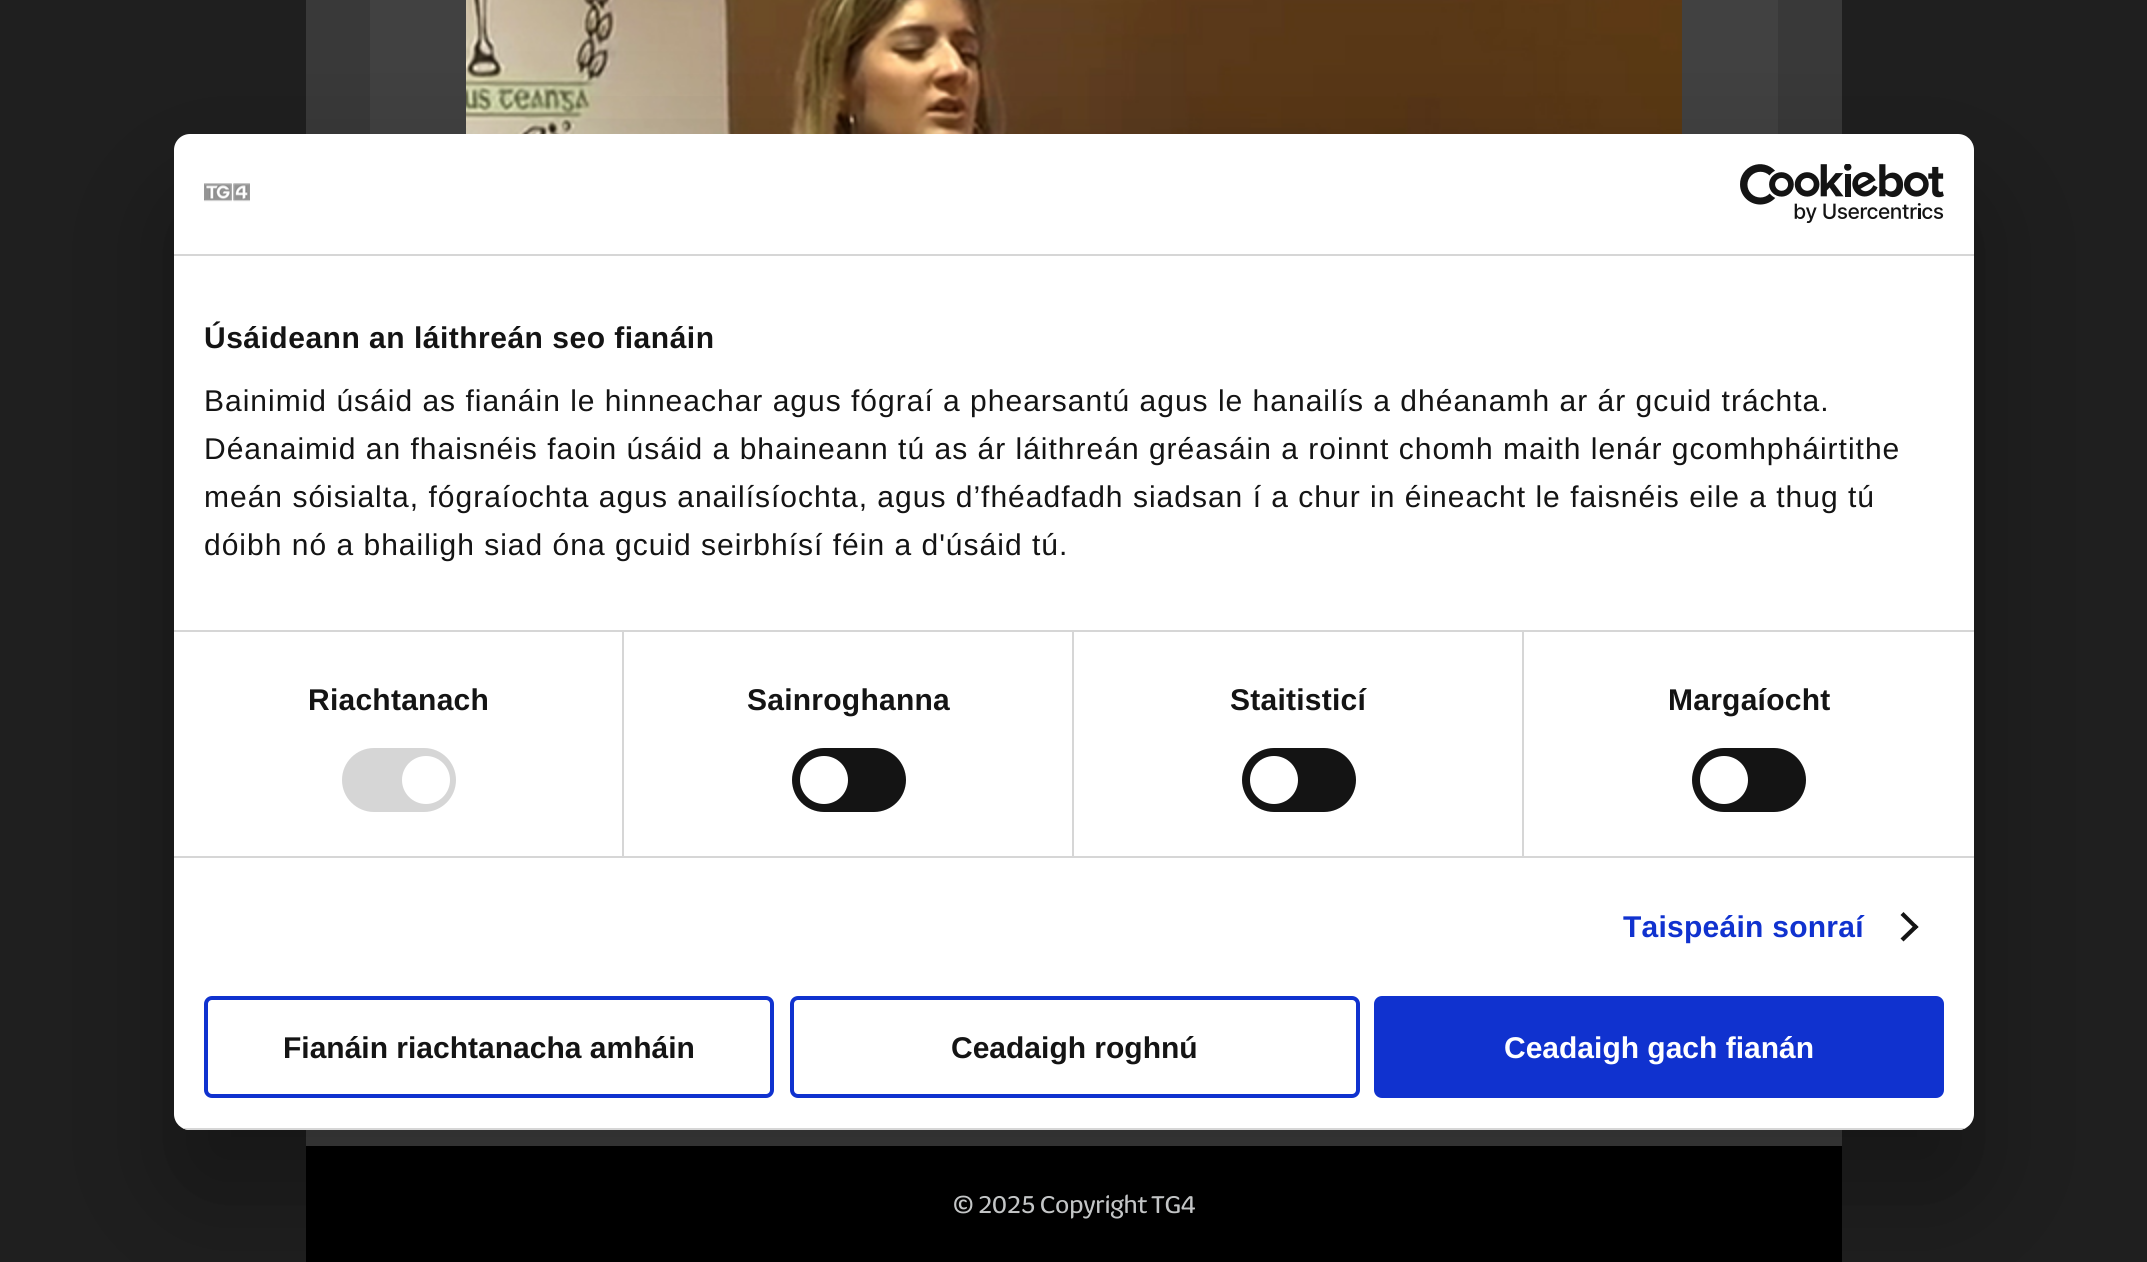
import math
import cairo

surface = cairo.ImageSurface(cairo.FORMAT_RGB24, 2147, 1262)
ctx = cairo.Context(surface)
options = cairo.FontOptions()
options.set_hint_metrics(cairo.HINT_METRICS_OFF)
options.set_hint_style(cairo.HINT_STYLE_NONE)
ctx.set_font_options(options)
ctx.set_miter_limit(4)


def set_color(code):
    ctx.set_source_rgb(*(v / 255 for v in bytes.fromhex(code[-6:])))


def draw_text(x, y, s, family, size, color, bold=False, italic=False):
    ctx.select_font_face(family, cairo.FONT_SLANT_ITALIC if italic else cairo.FONT_SLANT_NORMAL, cairo.FONT_WEIGHT_BOLD if bold else cairo.FONT_WEIGHT_NORMAL)
    ctx.set_font_size(size)
    set_color(color)
    ctx.move_to(x, y)
    ctx.show_text(s)


def draw_spaced(x, y, s, letter, word):
    ctx.move_to(x, y)
    for ch in s:
        ctx.show_text(ch)
        ctx.rel_move_to(letter + word * (ch == ' '), 0)


def fill_rect(x, y, w, h, color):
    set_color(color)
    ctx.rectangle(x, y, w, h)
    ctx.fill()


def rounded_rect(x, y, w, h, r):
    ctx.new_sub_path()
    for i, (u, v) in enumerate([(x + w - r, y + h - r), (x + r, y + h - r), (x + r, y + r), (x + w - r, y + r)]):
        ctx.arc(u, v, r, i * math.pi / 2, (i + 1) * math.pi / 2)
    ctx.close_path()


def draw_shadow(x, y, w, h, r, blur, alpha):
    ctx.push_group_with_content(cairo.CONTENT_ALPHA)
    ctx.set_operator(cairo.OPERATOR_SOURCE)
    for i in range(15, -16, -2):
        e = blur * i / 6
        if min(w, h) + 2 * e > 0:
            ctx.set_source_rgba(0, 0, 0, alpha * math.erfc((i - 1) / 8.5) / 2)
            rounded_rect(x - e, y - e, w + 2 * e, h + 2 * e, max(0, min(r + e + blur * .6, min(w, h) / 2 + e)))
            ctx.fill()
    ctx.mask(ctx.pop_group())


def draw_image(path, x, y, w, h):
    ctx.save()
    ctx.set_source_surface(cairo.ImageSurface.create_from_png(path), x, y)
    ctx.rectangle(x, y, w, h)
    ctx.fill()
    ctx.restore()


set_color("#1f1f1f")
ctx.paint()
fill_rect(306, 0, 1536, 134, "#393939")
fill_rect(370, 0, 1408, 134, "#414141")
draw_image("assets/img3.png", 466, 0, 1216, 134)
fill_rect(306, 1130, 1536, 16, "#414141")
fill_rect(306, 1146, 1536, 116, "#000000")
set_color("#000000")
draw_shadow(174, 198, 1800, 996, 16, 68, 0.3)
set_color("#ffffff")
rounded_rect(174, 134, 1800, 996, 16)
ctx.fill()
fill_rect(174, 254, 1800, 2, "#d6d6d6")
draw_image("assets/img1.png", 204, 183, 46, 19)
draw_image("assets/img2.png", 1740, 164, 204, 60)
fill_rect(174, 630, 1800, 2, "#d6d6d6")
ctx.select_font_face("Liberation Sans", cairo.FONT_SLANT_NORMAL, cairo.FONT_WEIGHT_BOLD)
ctx.set_font_size(30)
set_color("#141414")
draw_spaced(204, 348, "Úsáideann an láithreán seo fianáin", 0.5, 0)
ctx.select_font_face("Liberation Sans")
draw_spaced(204, 411, "Bainimid úsáid as fianáin le hinneachar agus fógraí a phearsantú agus le hanailís a dhéanamh ar ár gcuid tráchta.", 1, 0)
draw_spaced(204, 459, "Déanaimid an fhaisnéis faoin úsáid a bhaineann tú as ár láithreán gréasáin a roinnt chomh maith lenár gcomhpháirtithe", 1, 0)
draw_spaced(204, 507, "meán sóisialta, fógraíochta agus anailísíochta, agus d’fhéadfadh siadsan í a chur in éineacht le faisnéis eile a thug tú", 1, 0)
draw_spaced(204, 555, "dóibh nó a bhailigh siad óna gcuid seirbhísí féin a d'úsáid tú.", 1, 0)
fill_rect(174, 856, 1800, 2, "#d6d6d6")
fill_rect(622, 632, 2, 224, "#d6d6d6")
ctx.select_font_face("Liberation Sans", cairo.FONT_SLANT_NORMAL, cairo.FONT_WEIGHT_BOLD)
set_color("#141414")
draw_spaced(308, 710, "Riachtanach", 0.25, 0)
set_color("#d6d6d6")
rounded_rect(342, 748, 114, 64, 32)
ctx.fill()
set_color("#ffffff")
ctx.arc(426, 780, 24, 0, 2 * math.pi)
ctx.fill()
fill_rect(1072, 632, 2, 224, "#d6d6d6")
set_color("#141414")
draw_spaced(747, 710, "Sainroghanna", 0.25, 0)
rounded_rect(792, 748, 114, 64, 32)
ctx.fill()
set_color("#ffffff")
ctx.arc(824, 780, 24, 0, 2 * math.pi)
ctx.fill()
fill_rect(1522, 632, 2, 224, "#d6d6d6")
set_color("#141414")
draw_spaced(1230, 710, "Staitisticí", 0.25, 0)
rounded_rect(1242, 748, 114, 64, 32)
ctx.fill()
set_color("#ffffff")
ctx.arc(1274, 780, 24, 0, 2 * math.pi)
ctx.fill()
set_color("#141414")
draw_spaced(1668, 710, "Margaíocht", 0.25, 0)
rounded_rect(1692, 748, 114, 64, 32)
ctx.fill()
set_color("#ffffff")
ctx.arc(1724, 780, 24, 0, 2 * math.pi)
ctx.fill()
set_color("#1032cf")
draw_spaced(1623, 937, "Taispeáin sonraí", 0.25, 0)
set_color("#141414")
ctx.new_path()
ctx.move_to(1903.5, 912)
ctx.line_to(1918.5, 927)
ctx.line_to(1915.5, 929.5)
ctx.line_to(1900.5, 915)
ctx.close_path()
ctx.fill()
ctx.new_path()
ctx.move_to(1915.5, 924)
ctx.line_to(1918.5, 927)
ctx.line_to(1903.5, 941.5)
ctx.line_to(1900.5, 938.5)
ctx.close_path()
ctx.fill()
ctx.save()
rounded_rect(174, 134, 1800, 996, 16)
ctx.clip()
fill_rect(174, 1128, 1800, 2, "#d6d6d6")
ctx.restore()
rounded_rect(206, 998, 566, 98, 6)
set_color("#1032cf")
ctx.set_line_width(4)
ctx.stroke()
draw_text(283, 1058, "Fianáin riachtanacha amháin", "Liberation Sans", 30, "#141414", bold=True)
rounded_rect(792, 998, 566, 98, 6)
set_color("#1032cf")
ctx.stroke()
draw_text(951, 1058, "Ceadaigh roghnú", "Liberation Sans", 30, "#141414", bold=True)
set_color("#1032cf")
rounded_rect(1376, 998, 566, 98, 6)
ctx.fill_preserve()
ctx.stroke()
draw_text(1504, 1058, "Ceadaigh gach fianán", "Liberation Sans", 30, "#ffffff", bold=True)
draw_text(953, 1213, "© 2025 Copyright TG4", "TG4", 28, "#c3c5c6")
surface.write_to_png("output.png")
